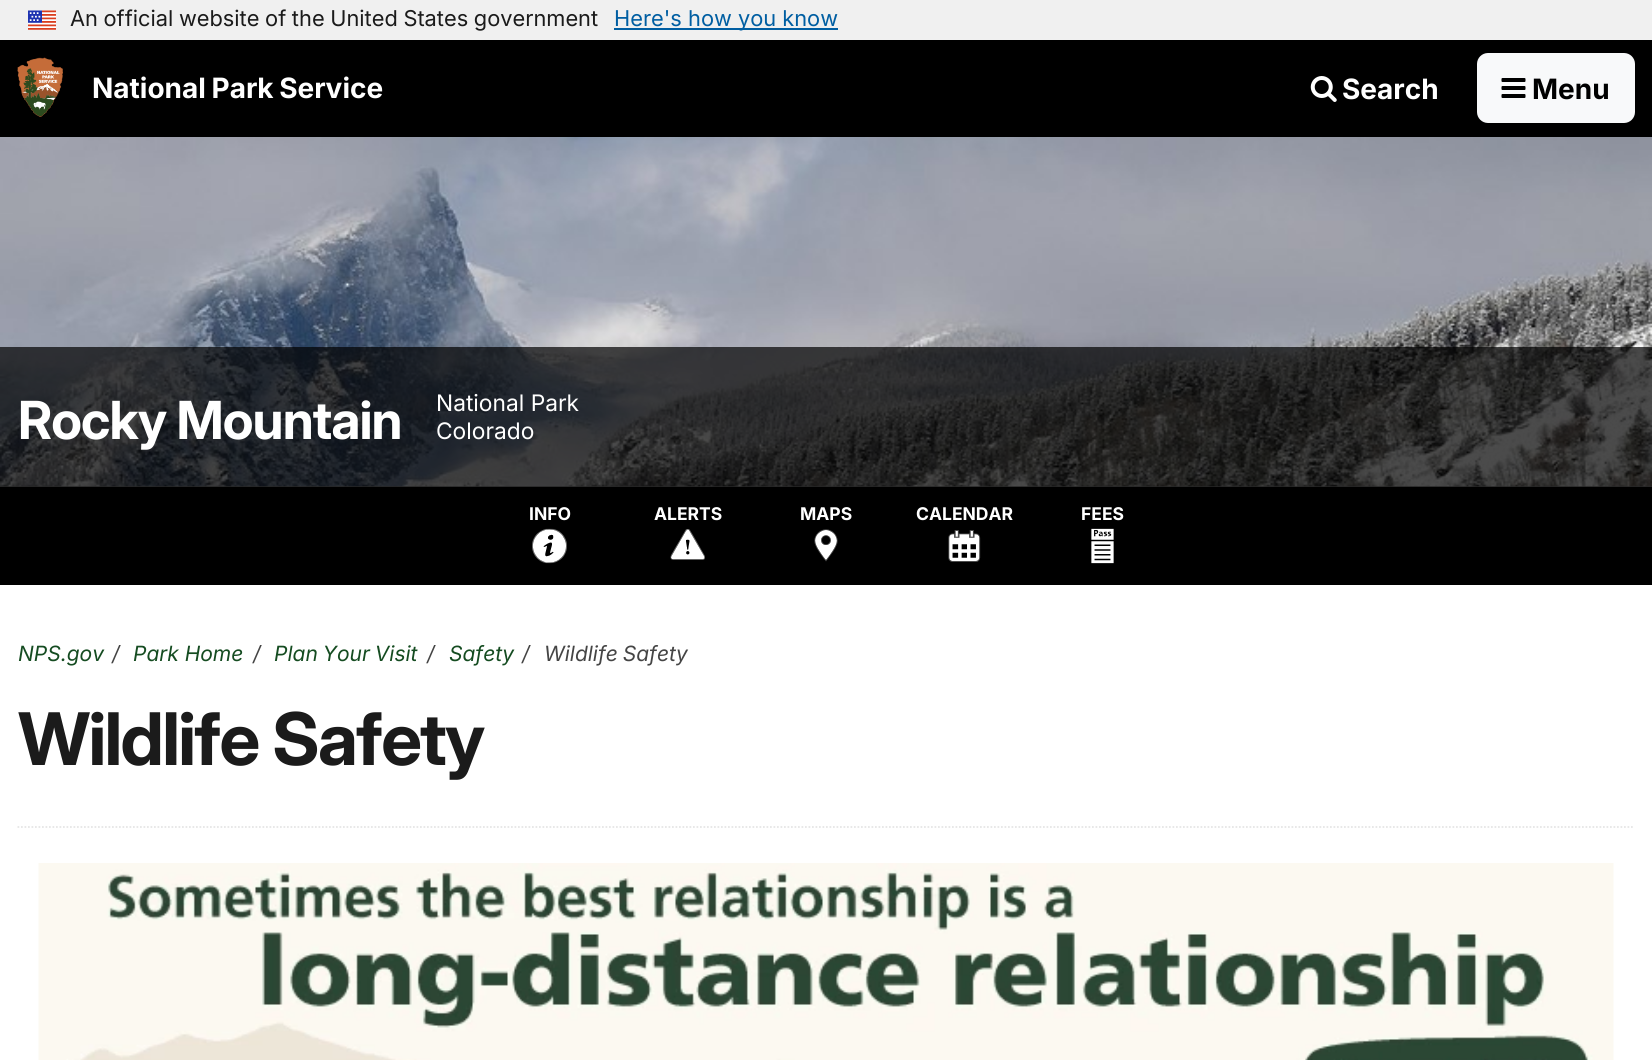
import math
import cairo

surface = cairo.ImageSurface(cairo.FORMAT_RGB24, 1652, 1060)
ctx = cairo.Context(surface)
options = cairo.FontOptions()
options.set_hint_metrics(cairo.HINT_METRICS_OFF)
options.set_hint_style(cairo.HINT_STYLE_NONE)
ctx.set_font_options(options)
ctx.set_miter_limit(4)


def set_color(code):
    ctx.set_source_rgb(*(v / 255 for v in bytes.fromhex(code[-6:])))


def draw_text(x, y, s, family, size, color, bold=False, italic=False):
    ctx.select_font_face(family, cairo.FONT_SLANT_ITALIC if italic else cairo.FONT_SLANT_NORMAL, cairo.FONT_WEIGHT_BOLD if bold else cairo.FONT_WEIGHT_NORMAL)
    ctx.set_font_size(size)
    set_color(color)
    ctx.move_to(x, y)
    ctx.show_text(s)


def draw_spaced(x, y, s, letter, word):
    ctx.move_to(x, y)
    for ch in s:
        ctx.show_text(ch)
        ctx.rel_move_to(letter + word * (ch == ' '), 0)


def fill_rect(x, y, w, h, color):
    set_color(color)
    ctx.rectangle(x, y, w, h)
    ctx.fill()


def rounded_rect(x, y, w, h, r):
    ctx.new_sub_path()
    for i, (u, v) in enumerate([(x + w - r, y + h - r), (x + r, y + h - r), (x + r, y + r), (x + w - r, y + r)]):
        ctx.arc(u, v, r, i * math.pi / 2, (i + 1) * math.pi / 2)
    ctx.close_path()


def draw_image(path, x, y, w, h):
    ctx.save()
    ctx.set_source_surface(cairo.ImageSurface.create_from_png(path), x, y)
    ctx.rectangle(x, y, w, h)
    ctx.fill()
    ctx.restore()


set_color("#ffffff")
ctx.paint()
fill_rect(0, 0, 1652, 40, "#f0f0f0")
draw_image("assets/img1.png", 28, 10, 28, 20)
ctx.select_font_face("Inter")
ctx.set_font_size(21.8)
set_color("#1b1b1b")
draw_spaced(70, 26, "An official website of the United States government", 0, -0.5)
fill_rect(614, 28, 224, 2, "#005ea2")
draw_text(614, 26, "Here's how you know", "Inter", 21.8, "#005ea2")
fill_rect(0, 40, 1652, 97, "#000000")
draw_image("assets/img2.png", 17, 57, 46, 60)
ctx.select_font_face("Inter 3", cairo.FONT_SLANT_NORMAL, cairo.FONT_WEIGHT_BOLD)
ctx.set_font_size(28)
set_color("#ffffff")
draw_spaced(92, 98, "National Park Service", 0, -1)
draw_image("assets/img3.png", 1310, 76, 27, 26)
draw_text(1342, 99, "Search", "Inter 3", 28, "#ffffff", bold=True)
set_color("#f8f9fa")
rounded_rect(1479, 55, 154, 66, 9)
ctx.fill_preserve()
ctx.set_line_width(4)
ctx.stroke()
draw_image("assets/img4.png", 1501, 78, 25, 20)
draw_text(1532, 99, "Menu", "Inter 3", 28, "#000000", bold=True)
fill_rect(0, 486, 1652, 1, "#808080")
draw_image("assets/img5.png", 0, 137, 1652, 350)
ctx.set_source_rgba(0, 0, 0, 0.7)
ctx.rectangle(0, 347, 1652, 140)
ctx.fill()
ctx.select_font_face("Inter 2", cairo.FONT_SLANT_NORMAL, cairo.FONT_WEIGHT_BOLD)
ctx.set_font_size(52.5)
set_color("#ffffff")
draw_spaced(18, 439, "Rocky Mountain", -0.9, 0)
draw_text(436, 411, "National Park", "Inter", 22.75, "#ffffff")
draw_text(436, 439, "Colorado", "Inter", 22.75, "#ffffff")
fill_rect(0, 487, 1652, 98, "#000000")
draw_text(529, 520, "INFO", "Inter 3", 17.5, "#ffffff", bold=True)
draw_image("assets/img6.png", 532, 528, 35, 36)
draw_text(654, 520, "ALERTS", "Inter 3", 17.5, "#ffffff", bold=True)
draw_image("assets/img7.png", 670, 529, 35, 31)
draw_text(800, 520, "MAPS", "Inter 3", 17.5, "#ffffff", bold=True)
draw_image("assets/img8.png", 814, 529, 24, 33)
draw_text(916, 520, "CALENDAR", "Inter 3", 17.5, "#ffffff", bold=True)
draw_image("assets/img9.png", 948, 530, 33, 32)
draw_text(1081, 520, "FEES", "Inter 3", 17.5, "#ffffff", bold=True)
draw_image("assets/img10.png", 1091, 528, 23, 36)
draw_text(18, 661, "NPS.gov", "Inter", 21, "#154c21", italic=True)
draw_text(112, 661, "/", "Inter", 21, "#454545", italic=True)
draw_text(133, 661, "Park Home", "Inter", 21, "#154c21", italic=True)
draw_text(253, 661, "/", "Inter", 21, "#454545", italic=True)
set_color("#154c21")
draw_spaced(274, 661, "Plan Your Visit", 0, -1)
draw_text(427, 661, "/", "Inter", 21, "#454545", italic=True)
draw_text(449, 661, "Safety", "Inter", 21, "#154c21", italic=True)
draw_text(522, 661, "/", "Inter", 21, "#454545", italic=True)
draw_spaced(544, 661, "Wildlife Safety", 0, -1)
ctx.new_path()
ctx.move_to(17.5, 827)
ctx.line_to(1634.5, 827)
set_color("#e6e6e6")
ctx.set_line_width(1.8)
ctx.set_dash([1.75, 1.75])
ctx.stroke()
ctx.select_font_face("Inter", cairo.FONT_SLANT_NORMAL, cairo.FONT_WEIGHT_BOLD)
ctx.set_font_size(72.5)
set_color("#1b1b1b")
draw_spaced(18, 765, "Wildlife Safety", -1.75, 0)
draw_image("assets/img11.png", 38, 863, 1576, 197)
surface.write_to_png("output.png")
